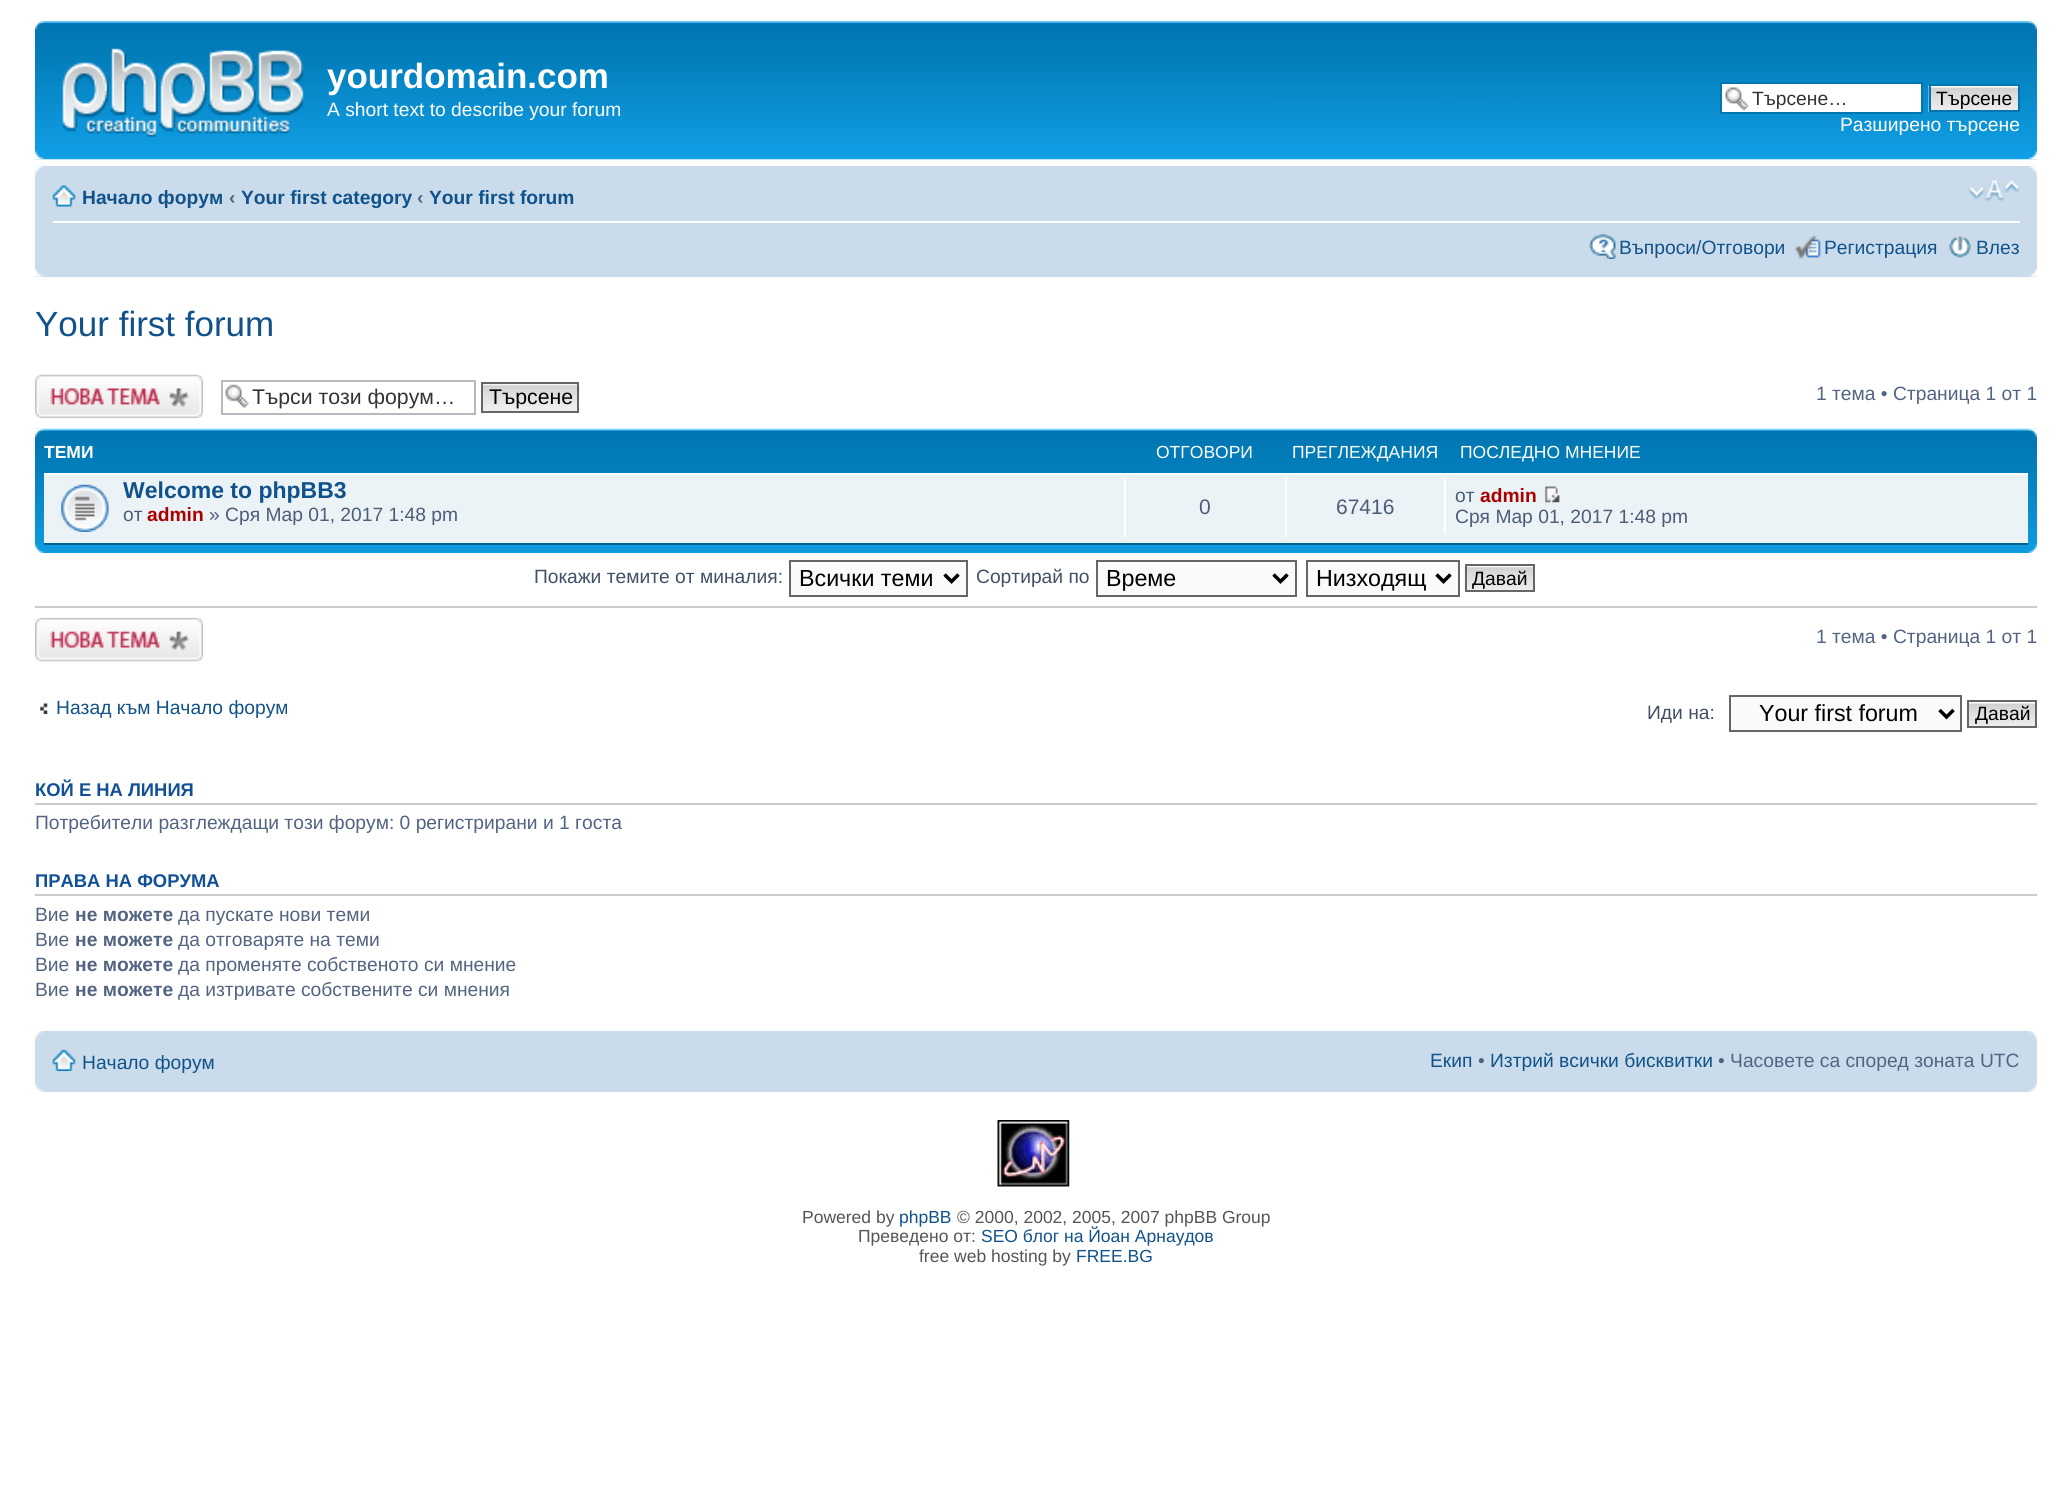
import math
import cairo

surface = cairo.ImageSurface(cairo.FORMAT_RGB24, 2071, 1509)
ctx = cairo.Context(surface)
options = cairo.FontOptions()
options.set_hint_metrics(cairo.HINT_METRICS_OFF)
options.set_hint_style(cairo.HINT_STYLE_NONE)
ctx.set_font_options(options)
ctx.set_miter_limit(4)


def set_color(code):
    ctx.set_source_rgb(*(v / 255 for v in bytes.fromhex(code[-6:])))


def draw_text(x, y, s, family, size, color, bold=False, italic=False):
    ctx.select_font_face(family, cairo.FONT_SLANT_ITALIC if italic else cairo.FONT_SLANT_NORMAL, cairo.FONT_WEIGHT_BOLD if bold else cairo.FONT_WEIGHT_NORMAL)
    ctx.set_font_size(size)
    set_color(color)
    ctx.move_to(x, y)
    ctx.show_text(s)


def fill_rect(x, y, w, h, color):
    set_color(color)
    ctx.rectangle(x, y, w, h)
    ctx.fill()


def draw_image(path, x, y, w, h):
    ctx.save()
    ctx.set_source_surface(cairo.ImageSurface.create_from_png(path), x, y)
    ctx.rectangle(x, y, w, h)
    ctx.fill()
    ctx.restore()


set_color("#ffffff")
ctx.paint()
draw_image("assets/img1.png", 35, 21, 2002, 139)
draw_image("assets/img2.png", 35, 21, 10, 9)
draw_image("assets/img3.png", 2027, 21, 10, 9)
draw_image("assets/img4.png", 62, 48, 242, 89)
draw_text(327, 88, "yourdomain.com", "Liberation Sans", 35, "#ffffff", bold=True)
draw_text(327, 116, "A short text to describe your forum", "Liberation Sans", 19.25, "#ffffff")
fill_rect(1722, 84, 199, 28, "#ffffff")
draw_image("assets/img5.png", 1725, 87, 24, 24)
ctx.rectangle(1721, 83, 201, 30)
set_color("#0075b0")
ctx.stroke()
draw_text(1752, 105, "Търсене…", "Liberation Sans", 19.25, "#333333")
draw_image("assets/img6.png", 1928, 85, 90, 27)
ctx.rectangle(1930, 85, 89, 26)
set_color("#0075b0")
ctx.stroke()
draw_text(1936, 105, "Търсене", "Liberation Sans", 19.25, "#000000")
draw_text(1840, 131, "Разширено търсене", "Liberation Sans", 19.25, "#ffffff")
draw_image("assets/img7.png", 35, 150, 10, 10)
draw_image("assets/img8.png", 2028, 150, 9, 10)
fill_rect(35, 166, 2002, 111, "#cadceb")
draw_image("assets/img9.png", 35, 166, 9, 9)
draw_image("assets/img10.png", 2028, 166, 9, 9)
fill_rect(53, 221, 1967, 2, "#ffffff")
draw_image("assets/img11.png", 52, 185, 24, 22)
draw_text(82, 204, "Начало форум", "Liberation Sans", 19.25, "#105289", bold=True)
draw_text(229, 204, "‹", "Liberation Sans", 19.25, "#536482", bold=True)
draw_text(241, 204, "Your first category", "Liberation Sans", 19.25, "#105289", bold=True)
draw_text(417, 204, "‹", "Liberation Sans", 19.25, "#536482", bold=True)
draw_text(429, 204, "Your first forum", "Liberation Sans", 19.25, "#105289", bold=True)
draw_image("assets/img12.png", 1968, 180, 52, 22)
draw_image("assets/img13.png", 1589, 234, 28, 25)
draw_text(1619, 254, "Въпроси/Отговори", "Liberation Sans", 19.25, "#105289")
draw_image("assets/img14.png", 1795, 235, 26, 24)
draw_text(1824, 254, "Регистрация", "Liberation Sans", 19.25, "#105289")
draw_image("assets/img15.png", 1949, 236, 22, 22)
draw_text(1976, 254, "Влез", "Liberation Sans", 19.25, "#105289")
draw_image("assets/img16.png", 35, 268, 9, 9)
draw_image("assets/img17.png", 2028, 268, 9, 9)
draw_text(35, 336, "Your first forum", "Liberation Sans", 35, "#105289")
draw_image("assets/img18.png", 35, 374, 168, 45)
draw_image("assets/img19.png", 225, 384, 24, 24)
ctx.rectangle(222, 381, 253, 33)
set_color("#b4bac0")
ctx.stroke()
draw_text(252, 404, "Търси този форум…", "Liberation Sans", 21.25, "#333333")
draw_image("assets/img20.png", 483, 384, 97, 29)
ctx.rectangle(482, 383, 96, 29)
set_color("#666666")
ctx.stroke()
draw_text(489, 404, "Търсене", "Liberation Sans", 21.25, "#000000")
draw_text(1816, 400, "1 тема • Страница 1 от 1", "Liberation Sans", 19.25, "#536482")
draw_image("assets/img21.png", 35, 428, 2002, 125)
draw_image("assets/img22.png", 35, 428, 10, 10)
draw_image("assets/img23.png", 2027, 428, 10, 10)
draw_text(44, 458, "ТЕМИ", "Liberation Sans", 17.5, "#ffffff", bold=True)
draw_text(1156, 458, "ОТГОВОРИ", "Liberation Sans", 17.5, "#ffffff")
draw_text(1292, 458, "ПРЕГЛЕЖДАНИЯ", "Liberation Sans", 17.5, "#ffffff")
draw_text(1460, 458, "ПОСЛЕДНО МНЕНИЕ", "Liberation Sans", 17.5, "#ffffff")
fill_rect(44, 475, 1984, 68, "#ecf3f7")
fill_rect(44, 473, 1984, 2, "#ffffff")
fill_rect(44, 543, 1984, 2, "#00608f")
draw_image("assets/img24.png", 61, 484, 48, 48)
draw_text(123, 498, "Welcome to phpBB3", "Liberation Sans", 23, "#105289", bold=True)
draw_text(123, 521, "от", "Liberation Sans", 19.25, "#4c5d77")
draw_text(147, 521, "admin", "Liberation Sans", 19.25, "#aa0000", bold=True)
draw_text(209, 521, "» Сря Мар 01, 2017 1:48 pm", "Liberation Sans", 19.25, "#4c5d77")
fill_rect(1124, 478, 2, 59, "#ffffff")
draw_text(1199, 514, "0", "Liberation Sans", 21, "#4c5d77")
fill_rect(1285, 478, 2, 59, "#ffffff")
draw_text(1336, 514, "67416", "Liberation Sans", 21, "#4c5d77")
fill_rect(1444, 478, 2, 56, "#ffffff")
draw_text(1455, 502, "от", "Liberation Sans", 19.25, "#4c5d77")
draw_text(1480, 502, "admin", "Liberation Sans", 19.25, "#aa0000", bold=True)
draw_image("assets/img25.png", 1544, 486, 16, 17)
draw_text(1455, 523, "Сря Мар 01, 2017 1:48 pm", "Liberation Sans", 19.25, "#4c5d77")
draw_image("assets/img26.png", 35, 544, 10, 9)
draw_image("assets/img27.png", 2028, 544, 9, 9)
draw_text(534, 583, "Покажи темите от миналия:", "Liberation Sans", 19.25, "#425067")
set_color("#fafafa")
ctx.rectangle(790, 561, 177, 35)
ctx.fill_preserve()
set_color("#666666")
ctx.stroke()
ctx.new_path()
ctx.move_to(944.5, 574.5)
ctx.line_to(951.5, 581.5)
ctx.line_to(958.5, 574.5)
set_color("#000000")
ctx.set_line_width(3.5)
ctx.stroke()
draw_text(799, 586, "Всички теми", "Liberation Sans", 23.25, "#000000")
draw_text(976, 583, "Сортирай по", "Liberation Sans", 19.25, "#425067")
set_color("#fafafa")
ctx.rectangle(1097, 561, 199, 35)
ctx.fill_preserve()
set_color("#666666")
ctx.set_line_width(2)
ctx.stroke()
ctx.new_path()
ctx.move_to(1273.5, 574.5)
ctx.line_to(1280.5, 581.5)
ctx.line_to(1287.5, 574.5)
set_color("#000000")
ctx.set_line_width(3.5)
ctx.stroke()
draw_text(1106, 586, "Време", "Liberation Sans", 23.25, "#000000")
set_color("#fafafa")
ctx.rectangle(1307, 561, 152, 35)
ctx.fill_preserve()
set_color("#666666")
ctx.set_line_width(2)
ctx.stroke()
ctx.new_path()
ctx.move_to(1436.5, 574.5)
ctx.line_to(1443.5, 581.5)
ctx.line_to(1450.5, 574.5)
set_color("#000000")
ctx.set_line_width(3.5)
ctx.stroke()
draw_text(1316, 586, "Низходящ", "Liberation Sans", 23.25, "#000000")
draw_image("assets/img28.png", 1464, 566, 69, 26)
ctx.rectangle(1466, 565, 68, 26)
set_color("#666666")
ctx.set_line_width(2)
ctx.stroke()
draw_text(1472, 585, "Давай", "Liberation Sans", 19.25, "#000000")
fill_rect(35, 606, 2002, 2, "#cccccc")
draw_image("assets/img29.png", 35, 617, 168, 45)
draw_text(1816, 643, "1 тема • Страница 1 от 1", "Liberation Sans", 19.25, "#536482")
draw_image("assets/img30.png", 40, 703, 8, 11)
draw_text(56, 714, "Назад към Начало форум", "Liberation Sans", 19.25, "#105289")
draw_text(1647, 719, "Иди на:", "Liberation Sans", 19.25, "#425067")
set_color("#fafafa")
ctx.rectangle(1730, 696, 231, 35)
ctx.fill_preserve()
set_color("#666666")
ctx.stroke()
ctx.new_path()
ctx.move_to(1939.5, 710)
ctx.line_to(1946.5, 717)
ctx.line_to(1953.5, 710)
set_color("#000000")
ctx.set_line_width(3.5)
ctx.stroke()
draw_text(1759, 721, "Your first forum", "Liberation Sans", 23.25, "#000000")
draw_image("assets/img31.png", 1969, 702, 66, 24)
ctx.rectangle(1968, 701, 68, 26)
set_color("#666666")
ctx.set_line_width(2)
ctx.stroke()
draw_text(1975, 720, "Давай", "Liberation Sans", 19.25, "#000000")
fill_rect(35, 803, 2002, 2, "#cccccc")
draw_text(35, 796, "КОЙ Е НА ЛИНИЯ", "Liberation Sans", 18.4, "#115098", bold=True)
draw_text(35, 829, "Потребители разглеждащи този форум: 0 регистрирани и 1 госта", "Liberation Sans", 19.25, "#536482")
fill_rect(35, 894, 2002, 2, "#cccccc")
draw_text(35, 887, "ПРАВА НА ФОРУМА", "Liberation Sans", 18.4, "#115098", bold=True)
draw_text(35, 921, "Вие", "Liberation Sans", 19.25, "#536482")
draw_text(75, 921, "не можете", "Liberation Sans", 19.25, "#536482", bold=True)
draw_text(178, 921, "да пускате нови теми", "Liberation Sans", 19.25, "#536482")
draw_text(35, 946, "Вие", "Liberation Sans", 19.25, "#536482")
draw_text(75, 946, "не можете", "Liberation Sans", 19.25, "#536482", bold=True)
draw_text(178, 946, "да отговаряте на теми", "Liberation Sans", 19.25, "#536482")
draw_text(35, 971, "Вие", "Liberation Sans", 19.25, "#536482")
draw_text(75, 971, "не можете", "Liberation Sans", 19.25, "#536482", bold=True)
draw_text(178, 971, "да променяте собственото си мнение", "Liberation Sans", 19.25, "#536482")
draw_text(35, 996, "Вие", "Liberation Sans", 19.25, "#536482")
draw_text(75, 996, "не можете", "Liberation Sans", 19.25, "#536482", bold=True)
draw_text(178, 996, "да изтривате собствените си мнения", "Liberation Sans", 19.25, "#536482")
fill_rect(35, 1031, 2002, 61, "#cadceb")
draw_image("assets/img32.png", 35, 1031, 9, 9)
draw_image("assets/img33.png", 2028, 1031, 9, 9)
draw_image("assets/img34.png", 52, 1050, 24, 21)
draw_text(82, 1069, "Начало форум", "Liberation Sans", 19.25, "#105289")
draw_text(1430, 1067, "Екип", "Liberation Sans", 19.25, "#105289")
draw_text(1478, 1067, "•", "Liberation Sans", 19.25, "#536482")
draw_text(1490, 1067, "Изтрий всички бисквитки", "Liberation Sans", 19.25, "#105289")
draw_text(1718, 1067, "• Часовете са според зоната UTC", "Liberation Sans", 19.25, "#536482")
draw_image("assets/img35.png", 35, 1083, 9, 9)
draw_image("assets/img36.png", 2028, 1083, 9, 9)
draw_image("assets/img37.png", 997, 1120, 73, 67)
draw_text(802, 1223, "Powered by", "Liberation Sans", 17.5, "#555555")
draw_text(899, 1223, "phpBB", "Liberation Sans", 17.5, "#105289")
draw_text(957, 1223, "© 2000, 2002, 2005, 2007 phpBB Group", "Liberation Sans", 17.5, "#555555")
draw_text(858, 1242, "Преведено от:", "Liberation Sans", 17.5, "#555555")
draw_text(981, 1242, "SEO блог на Йоан Арнаудов", "Liberation Sans", 17.5, "#105289")
draw_text(919, 1262, "free web hosting by", "Liberation Sans", 17.5, "#555555")
draw_text(1076, 1262, "FREE.BG", "Liberation Sans", 17.5, "#105289")
surface.write_to_png("output.png")
